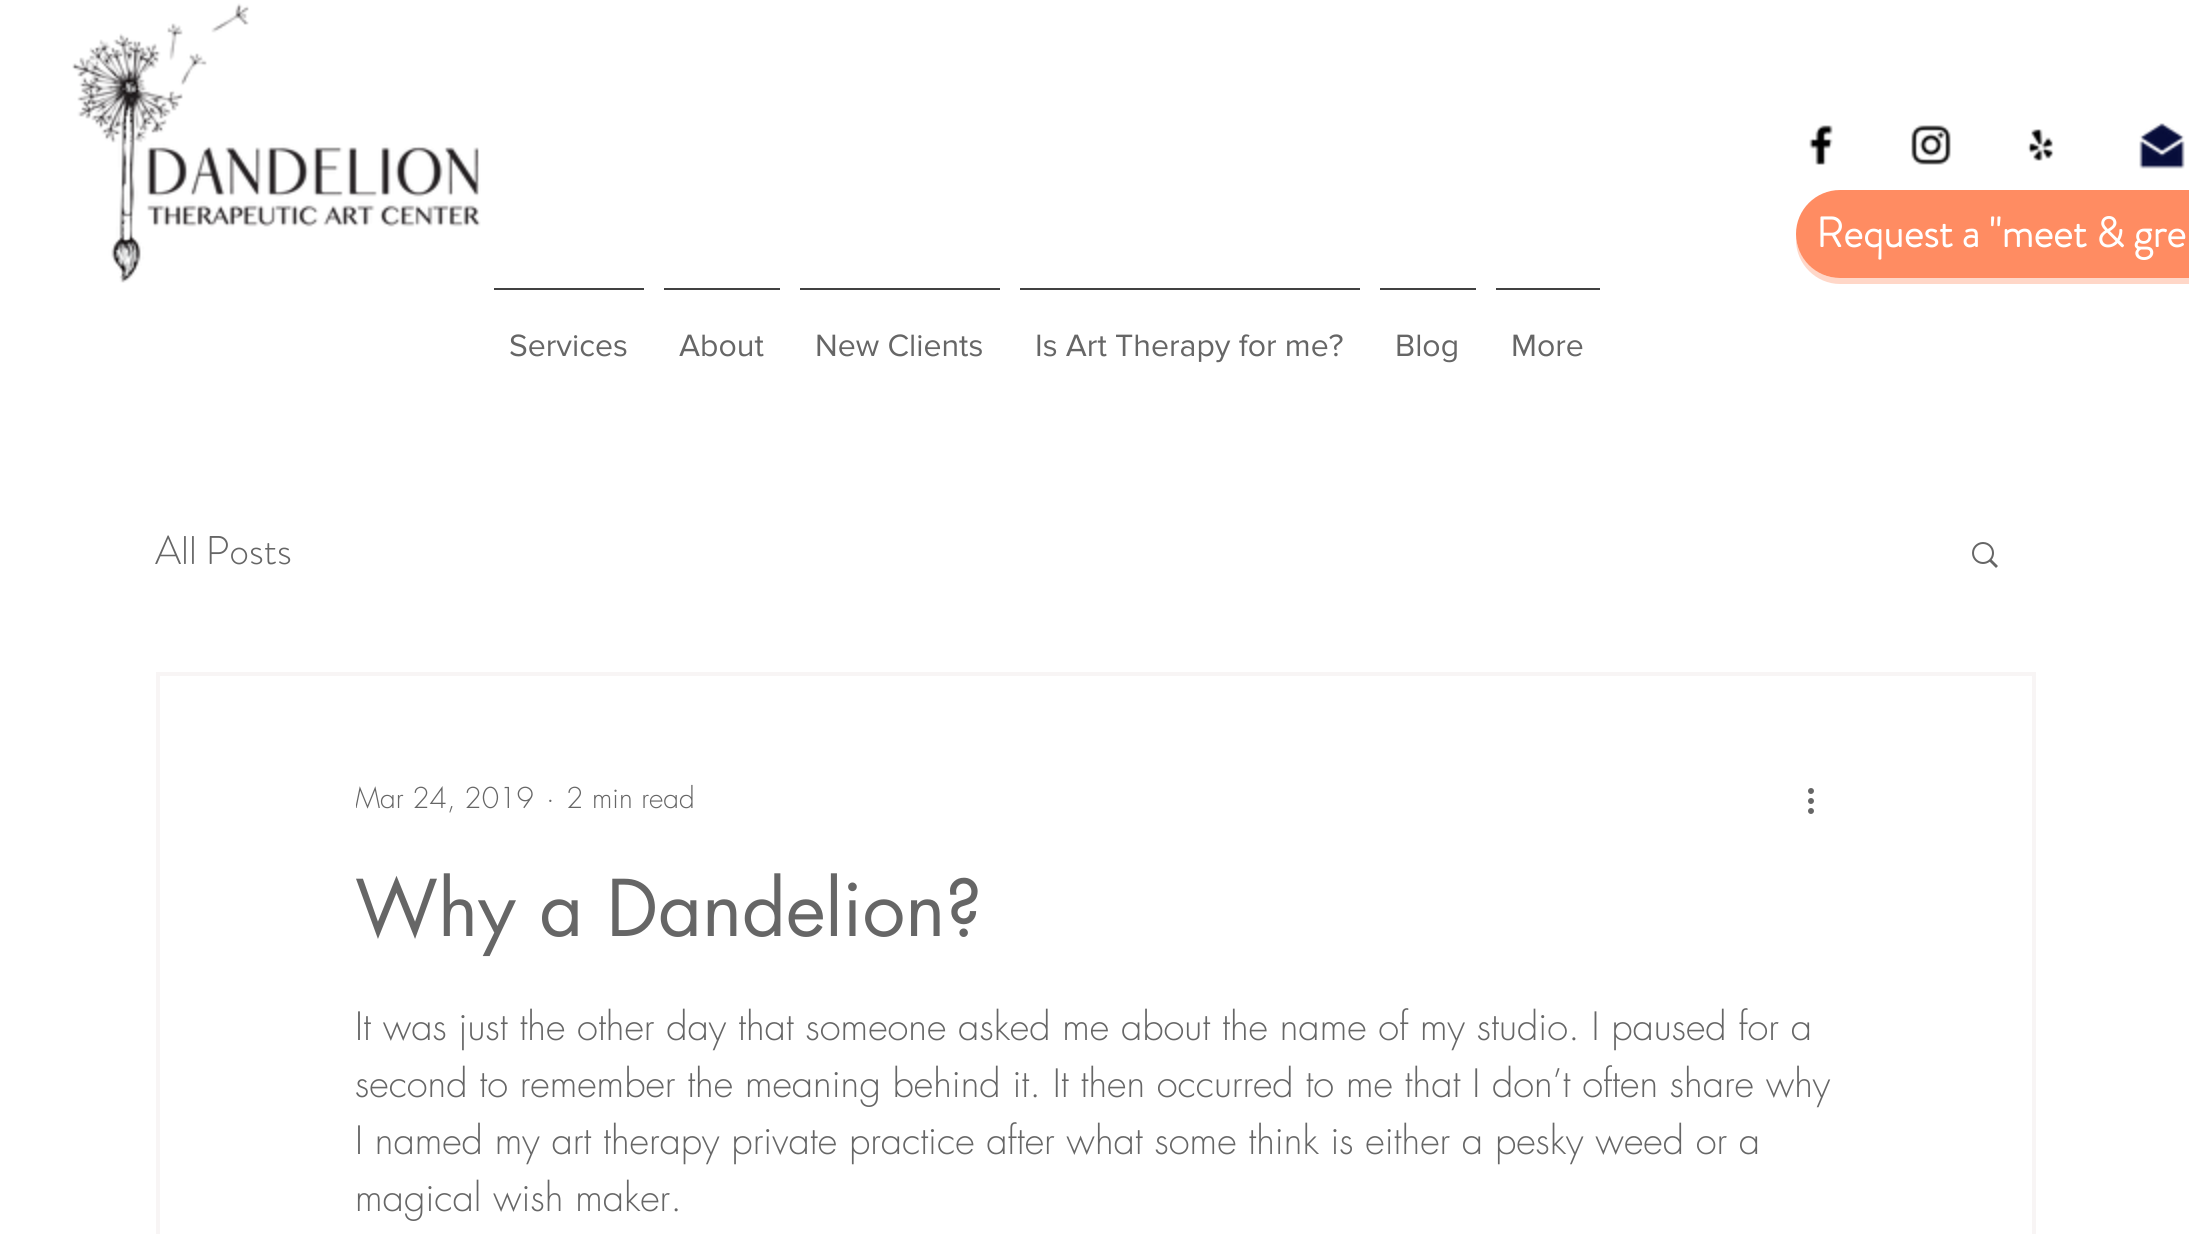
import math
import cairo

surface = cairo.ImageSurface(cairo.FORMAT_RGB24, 2189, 1234)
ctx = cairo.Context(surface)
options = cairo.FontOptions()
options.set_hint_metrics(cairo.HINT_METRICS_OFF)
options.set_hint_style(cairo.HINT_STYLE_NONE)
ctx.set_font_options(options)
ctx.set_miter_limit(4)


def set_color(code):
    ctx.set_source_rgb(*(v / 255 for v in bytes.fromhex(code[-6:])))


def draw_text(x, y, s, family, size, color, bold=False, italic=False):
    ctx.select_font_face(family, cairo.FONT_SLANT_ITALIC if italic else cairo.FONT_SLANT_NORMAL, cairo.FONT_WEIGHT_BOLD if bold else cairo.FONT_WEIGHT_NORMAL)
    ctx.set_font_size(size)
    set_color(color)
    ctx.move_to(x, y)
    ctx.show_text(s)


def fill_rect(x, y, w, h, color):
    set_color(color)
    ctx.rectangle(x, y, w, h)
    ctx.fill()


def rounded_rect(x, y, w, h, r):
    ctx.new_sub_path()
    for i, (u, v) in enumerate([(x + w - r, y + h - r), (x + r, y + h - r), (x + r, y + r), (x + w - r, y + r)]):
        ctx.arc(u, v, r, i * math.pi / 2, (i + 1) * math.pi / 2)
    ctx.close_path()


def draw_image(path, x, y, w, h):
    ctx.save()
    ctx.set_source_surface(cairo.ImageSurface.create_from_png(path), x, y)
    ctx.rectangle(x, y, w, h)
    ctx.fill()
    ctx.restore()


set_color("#ffffff")
ctx.paint()
draw_image("assets/img1.png", 72, 3, 409, 280)
draw_image("assets/img2.png", 1809, 125, 24, 40)
draw_image("assets/img3.png", 1911, 125, 40, 40)
draw_image("assets/img4.png", 2027, 129, 27, 32)
draw_image("assets/img5.png", 2139, 123, 46, 46)
set_color("#ffd7c8")
ctx.new_path()
ctx.move_to(1796, 237)
ctx.line_to(1796, 240)
ctx.curve_to(1796, 264, 1816, 284, 1840, 284)
ctx.line_to(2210, 284)
ctx.curve_to(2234, 284, 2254, 264, 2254, 240)
ctx.line_to(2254, 237)
ctx.curve_to(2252, 260, 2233, 278, 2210, 278)
ctx.line_to(1840, 278)
ctx.curve_to(1817, 278, 1798, 260, 1796, 237)
ctx.close_path()
ctx.fill()
set_color("#ff8c62")
rounded_rect(1796, 190, 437, 88, 44)
ctx.fill()
draw_text(1816, 247, "Request a \"meet & gre", "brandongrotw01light", 42, "#ffffff", bold=True)
fill_rect(494, 288, 150, 2, "#414141")
draw_text(509, 356, "Services", "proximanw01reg", 32, "#666666")
fill_rect(664, 288, 116, 2, "#414141")
draw_text(679, 356, "About", "proximanw01reg", 32, "#666666")
fill_rect(800, 288, 200, 2, "#414141")
draw_text(815, 356, "New Clients", "proximanw01reg", 32, "#666666")
fill_rect(1020, 288, 340, 2, "#414141")
draw_text(1035, 356, "Is Art Therapy for me?", "proximanw01reg", 32, "#666666")
fill_rect(1380, 288, 96, 2, "#414141")
draw_text(1395, 356, "Blog", "proximanw01reg", 32, "#666666")
fill_rect(1496, 288, 104, 2, "#414141")
draw_text(1511, 356, "More", "proximanw01reg", 32, "#666666")
draw_text(155, 564, "All Posts", "brandongrotw01light Light", 40, "#666666")
draw_image("assets/img6.png", 1972, 542, 26, 26)
ctx.rectangle(158, 674, 1876, 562)
set_color("#f8f5f5")
ctx.set_line_width(4)
ctx.stroke()
ctx.save()
ctx.rectangle(356, 778, 178, 42)
ctx.clip()
draw_text(355, 808, "Mar 24, 2019", "futura Light", 28, "#666666")
ctx.restore()
draw_text(546, 808, "·", "futura Light", 28, "#666666")
draw_text(566, 808, "2 min read", "futura Light", 28, "#666666")
draw_image("assets/img7.png", 1808, 788, 6, 26)
draw_text(355, 936, "Why a Dandelion?", "futura", 76, "#666666")
draw_text(355, 1040, "It was just the other day that someone asked me about the name of my studio. I paused for a", "futura Light", 38, "#666666")
draw_text(355, 1097, "second to remember the meaning behind it. It then occurred to me that I don’t often share why", "futura Light", 38, "#666666")
draw_text(355, 1154, "I named my art therapy private practice after what some think is either a pesky weed or a", "futura Light", 38, "#666666")
draw_text(355, 1211, "magical wish maker.", "futura Light", 38, "#666666")
surface.write_to_png("output.png")
